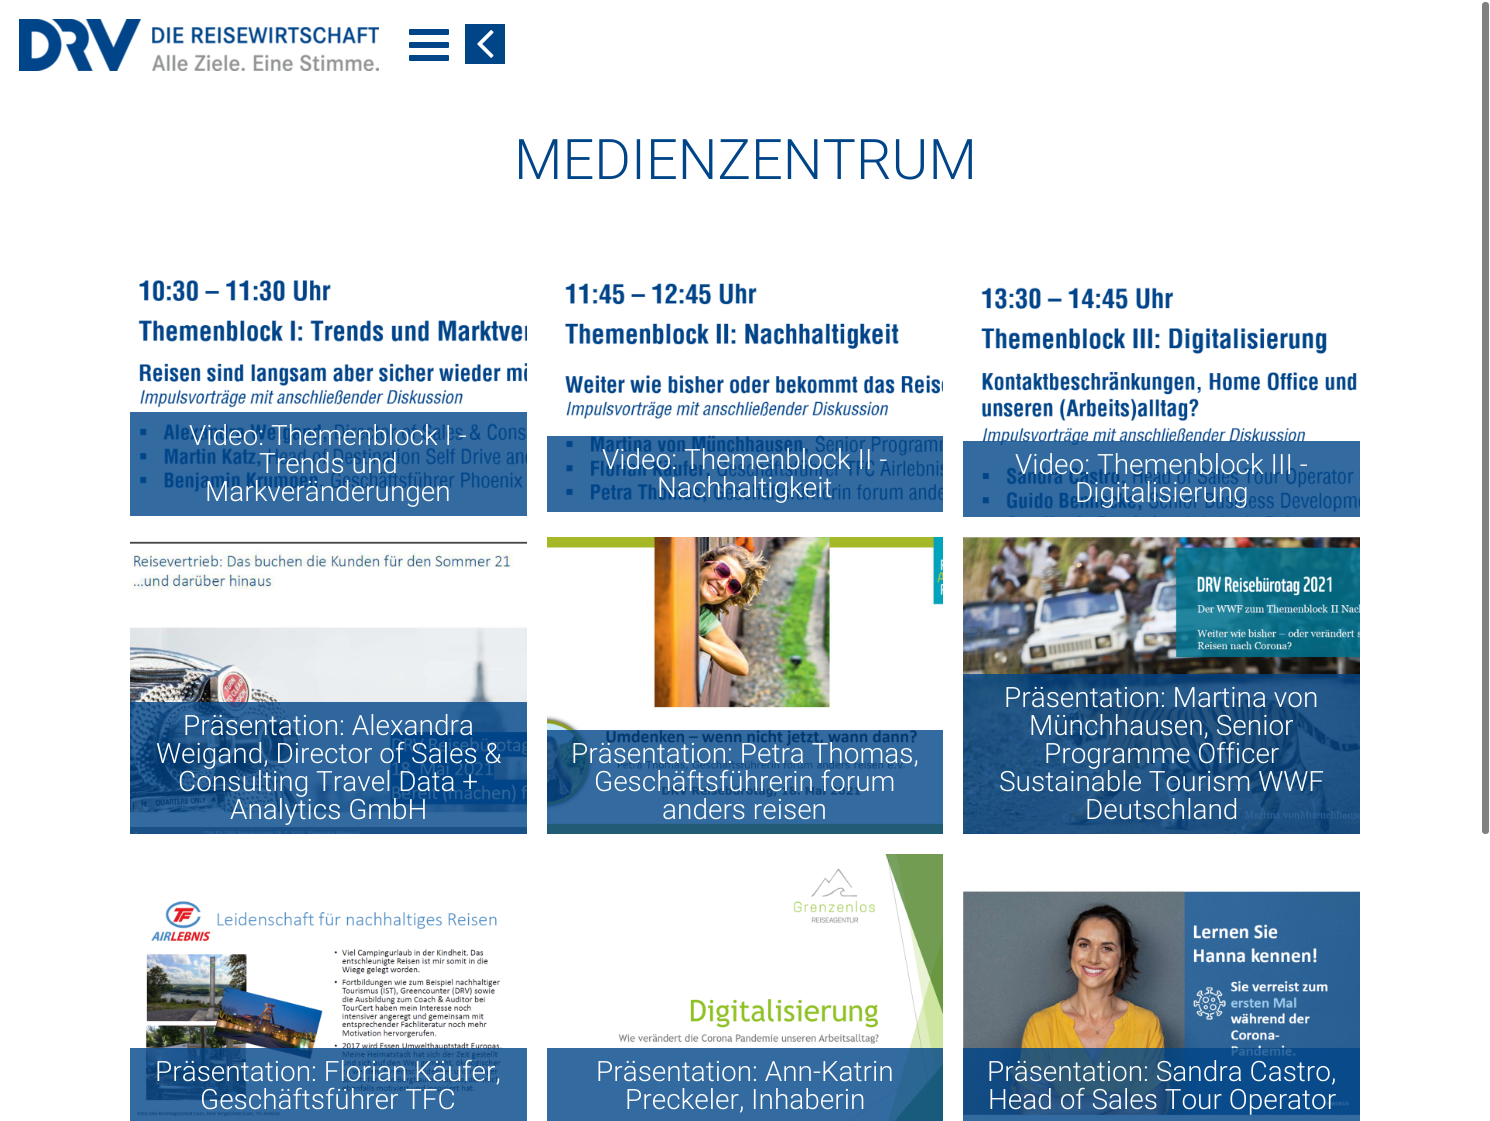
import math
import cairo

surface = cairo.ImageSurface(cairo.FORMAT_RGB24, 1490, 1121)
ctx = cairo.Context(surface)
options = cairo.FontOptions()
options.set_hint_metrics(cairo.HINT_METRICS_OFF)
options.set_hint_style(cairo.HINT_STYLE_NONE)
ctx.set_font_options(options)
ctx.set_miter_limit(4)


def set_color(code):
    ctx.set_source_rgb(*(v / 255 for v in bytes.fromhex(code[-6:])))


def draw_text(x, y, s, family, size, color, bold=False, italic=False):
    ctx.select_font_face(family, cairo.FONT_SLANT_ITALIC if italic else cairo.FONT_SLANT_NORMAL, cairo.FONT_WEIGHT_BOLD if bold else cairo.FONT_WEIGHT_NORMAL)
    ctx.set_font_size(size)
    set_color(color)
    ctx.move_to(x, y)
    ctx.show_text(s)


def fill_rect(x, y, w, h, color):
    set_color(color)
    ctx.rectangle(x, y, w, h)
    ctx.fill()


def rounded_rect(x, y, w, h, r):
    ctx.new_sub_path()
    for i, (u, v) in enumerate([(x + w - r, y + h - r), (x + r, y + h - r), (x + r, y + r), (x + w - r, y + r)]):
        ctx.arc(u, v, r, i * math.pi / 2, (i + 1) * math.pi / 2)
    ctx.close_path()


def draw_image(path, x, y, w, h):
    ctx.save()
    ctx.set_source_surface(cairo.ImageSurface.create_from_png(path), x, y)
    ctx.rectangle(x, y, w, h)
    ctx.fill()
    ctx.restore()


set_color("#ffffff")
ctx.paint()
draw_image("assets/img1.png", 19, 19, 360, 52)
set_color("#014589")
rounded_rect(409, 29, 40, 6, 1)
ctx.fill()
rounded_rect(409, 42, 40, 6, 1)
ctx.fill()
rounded_rect(409, 55, 40, 6, 1)
ctx.fill()
fill_rect(465, 24, 40, 40, "#014589")
draw_image("assets/img2.png", 477, 30, 17, 28)
draw_text(514, 179, "MEDIENZENTRUM", "Roboto Light", 56, "#014589")
draw_image("assets/img3.png", 138, 280, 389, 212)
ctx.set_source_rgba(0.004, 0.271, 0.537, 0.8)
ctx.rectangle(130, 412, 397, 104)
ctx.fill()
draw_text(189, 445, "Video: Themenblock I -", "Roboto Light", 28, "#ffffff")
draw_text(259, 473, "Trends und", "Roboto Light", 28, "#ffffff")
draw_text(205, 501, "Markveränderungen", "Roboto Light", 28, "#ffffff")
draw_image("assets/img4.png", 564, 283, 379, 220)
ctx.set_source_rgba(0.004, 0.271, 0.537, 0.8)
ctx.rectangle(547, 436, 396, 76)
ctx.fill()
draw_text(602, 469, "Video: Themenblock II -", "Roboto Light", 28, "#ffffff")
draw_text(657, 497, "Nachhaltigkeit", "Roboto Light", 28, "#ffffff")
draw_image("assets/img5.png", 981, 287, 379, 230)
ctx.set_source_rgba(0.004, 0.271, 0.537, 0.8)
ctx.rectangle(963, 441, 397, 76)
ctx.fill()
draw_text(1015, 474, "Video: Themenblock III -", "Roboto Light", 28, "#ffffff")
draw_text(1075, 502, "Digitalisierung", "Roboto Light", 28, "#ffffff")
draw_image("assets/img6.png", 130, 541, 397, 293)
ctx.set_source_rgba(0.004, 0.271, 0.537, 0.8)
ctx.rectangle(130, 702, 397, 132)
ctx.fill()
draw_text(183, 735, "Präsentation: Alexandra", "Roboto Light", 28, "#ffffff")
draw_text(156, 763, "Weigand, Director of Sales &", "Roboto Light", 28, "#ffffff")
draw_text(178, 791, "Consulting Travel Data +", "Roboto Light", 28, "#ffffff")
draw_text(230, 819, "Analytics GmbH", "Roboto Light", 28, "#ffffff")
draw_image("assets/img7.png", 547, 537, 396, 297)
ctx.set_source_rgba(0.004, 0.271, 0.537, 0.8)
ctx.rectangle(547, 730, 396, 104)
ctx.fill()
draw_text(571, 763, "Präsentation: Petra Thomas,", "Roboto Light", 28, "#ffffff")
draw_text(594, 791, "Geschäftsführerin forum", "Roboto Light", 28, "#ffffff")
draw_text(662, 819, "anders reisen", "Roboto Light", 28, "#ffffff")
draw_image("assets/img8.png", 963, 537, 397, 297)
ctx.set_source_rgba(0.004, 0.271, 0.537, 0.8)
ctx.rectangle(963, 674, 397, 160)
ctx.fill()
draw_text(1004, 707, "Präsentation: Martina von", "Roboto Light", 28, "#ffffff")
draw_text(1029, 735, "Münchhausen, Senior", "Roboto Light", 28, "#ffffff")
draw_text(1044, 763, "Programme Officer", "Roboto Light", 28, "#ffffff")
draw_text(999, 791, "Sustainable Tourism WWF", "Roboto Light", 28, "#ffffff")
draw_text(1085, 819, "Deutschland", "Roboto Light", 28, "#ffffff")
draw_image("assets/img9.png", 137, 901, 365, 216)
ctx.set_source_rgba(0.004, 0.271, 0.537, 0.8)
ctx.rectangle(130, 1048, 397, 73)
ctx.fill()
draw_text(155, 1081, "Präsentation: Florian Käufer,", "Roboto Light", 28, "#ffffff")
draw_text(200, 1109, "Geschäftsführer TFC", "Roboto Light", 28, "#ffffff")
draw_image("assets/img10.png", 618, 854, 325, 267)
ctx.set_source_rgba(0.004, 0.271, 0.537, 0.8)
ctx.rectangle(547, 1048, 396, 73)
ctx.fill()
draw_text(596, 1081, "Präsentation: Ann-Katrin", "Roboto Light", 28, "#ffffff")
draw_text(625, 1109, "Preckeler, Inhaberin", "Roboto Light", 28, "#ffffff")
draw_image("assets/img11.png", 963, 891, 397, 225)
ctx.set_source_rgba(0.004, 0.271, 0.537, 0.8)
ctx.rectangle(963, 1048, 397, 73)
ctx.fill()
draw_text(987, 1081, "Präsentation: Sandra Castro,", "Roboto Light", 28, "#ffffff")
draw_text(988, 1109, "Head of Sales Tour Operator", "Roboto Light", 28, "#ffffff")
set_color("#808080")
rounded_rect(1482, 2, 7, 832, 3)
ctx.fill()
surface.write_to_png("output.png")
